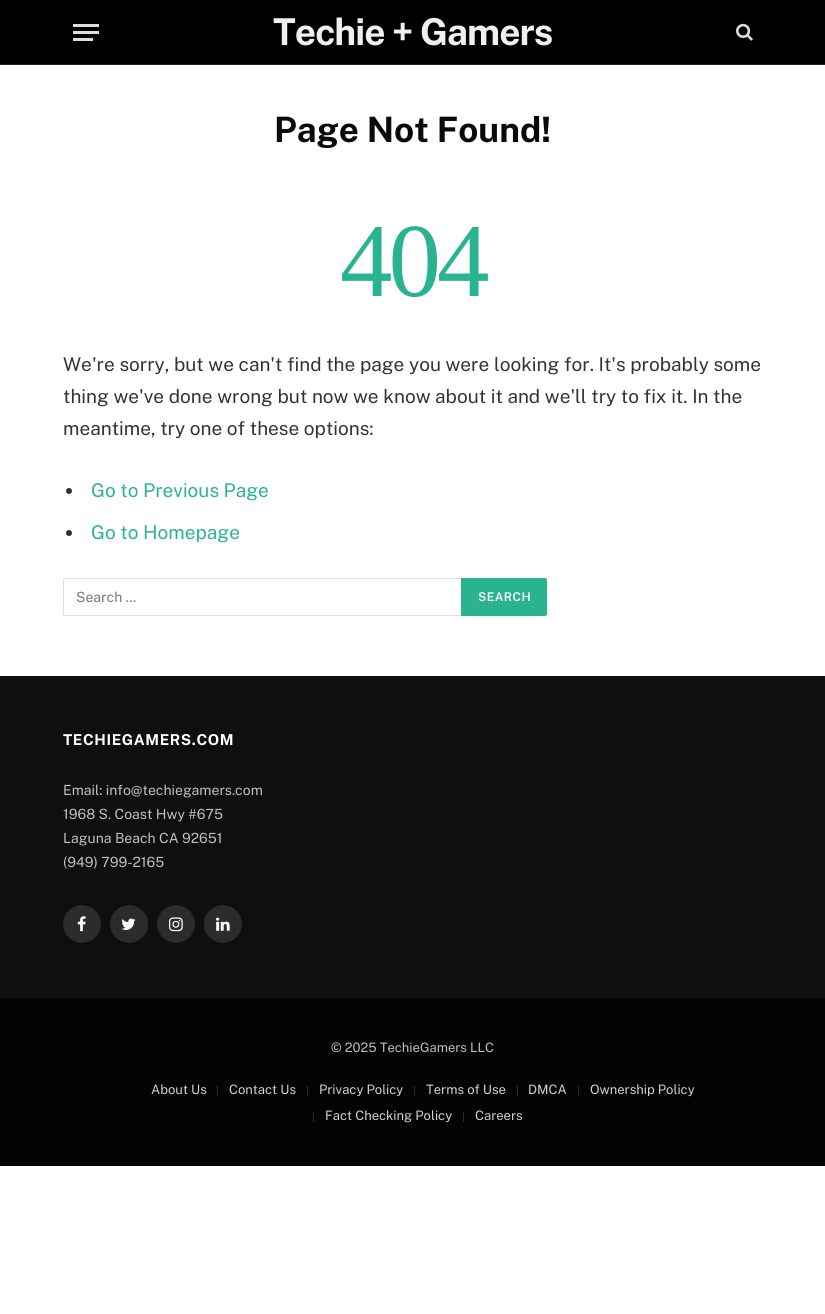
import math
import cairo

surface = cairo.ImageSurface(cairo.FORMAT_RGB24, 825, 1314)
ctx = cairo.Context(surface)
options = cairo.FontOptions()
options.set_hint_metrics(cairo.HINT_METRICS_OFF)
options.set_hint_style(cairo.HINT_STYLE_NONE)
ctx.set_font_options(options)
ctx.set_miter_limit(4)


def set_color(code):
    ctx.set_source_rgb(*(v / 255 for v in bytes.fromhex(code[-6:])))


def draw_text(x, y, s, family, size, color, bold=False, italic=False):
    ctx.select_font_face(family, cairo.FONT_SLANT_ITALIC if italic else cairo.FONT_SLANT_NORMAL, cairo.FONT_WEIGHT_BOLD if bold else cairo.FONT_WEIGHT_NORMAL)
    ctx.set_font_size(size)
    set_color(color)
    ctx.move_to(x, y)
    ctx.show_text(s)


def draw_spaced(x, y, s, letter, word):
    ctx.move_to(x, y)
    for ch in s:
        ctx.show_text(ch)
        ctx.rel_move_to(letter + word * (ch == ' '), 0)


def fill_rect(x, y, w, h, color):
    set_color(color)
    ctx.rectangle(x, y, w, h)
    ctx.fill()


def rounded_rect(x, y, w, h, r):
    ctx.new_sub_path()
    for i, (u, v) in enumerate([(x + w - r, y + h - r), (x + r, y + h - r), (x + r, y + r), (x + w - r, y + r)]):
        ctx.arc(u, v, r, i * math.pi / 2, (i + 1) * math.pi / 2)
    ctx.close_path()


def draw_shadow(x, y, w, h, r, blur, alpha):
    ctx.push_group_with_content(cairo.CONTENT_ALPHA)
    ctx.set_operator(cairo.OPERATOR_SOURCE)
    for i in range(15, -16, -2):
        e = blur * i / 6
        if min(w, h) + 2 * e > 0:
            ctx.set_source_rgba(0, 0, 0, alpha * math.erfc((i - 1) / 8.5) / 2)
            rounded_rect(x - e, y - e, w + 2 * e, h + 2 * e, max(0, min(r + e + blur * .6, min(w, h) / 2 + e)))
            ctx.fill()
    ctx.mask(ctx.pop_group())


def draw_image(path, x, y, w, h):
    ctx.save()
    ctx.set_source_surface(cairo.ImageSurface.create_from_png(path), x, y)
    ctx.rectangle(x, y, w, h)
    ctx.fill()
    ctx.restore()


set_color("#ffffff")
ctx.paint()
fill_rect(0, 0, 825, 64, "#000000")
fill_rect(0, 64, 825, 1, "#222222")
fill_rect(73, 38, 20, 3, "#dddddd")
fill_rect(73, 24, 26, 3, "#dddddd")
fill_rect(73, 31, 26, 3, "#dddddd")
ctx.select_font_face("Public Sans", cairo.FONT_SLANT_NORMAL, cairo.FONT_WEIGHT_BOLD)
ctx.set_font_size(37)
set_color("#f0f0f0")
draw_spaced(273, 45, "Techie + Gamers", -1, 0)
draw_image("assets/img1.png", 736, 23, 17, 18)
draw_text(274, 142, "Page Not Found!", "Public Sans", 35, "#0a0a0a", bold=True)
ctx.select_font_face("Liberation Serif")
ctx.set_font_size(105)
set_color("#2ab391")
draw_spaced(340, 296, "404", -4, 0)
draw_text(63, 371, "We're sorry, but we can't find the page you were looking for. It's probably some", "Public Sans", 19, "#333333")
draw_text(63, 403, "thing we've done wrong but now we know about it and we'll try to fix it. In the", "Public Sans", 19, "#333333")
draw_text(63, 435, "meantime, try one of these options:", "Public Sans", 19, "#333333")
ctx.new_path()
ctx.arc(69, 491, 3, 0, 2 * math.pi)
ctx.fill()
draw_text(91, 497, "Go to Previous Page", "Public Sans", 19, "#2ab391")
set_color("#333333")
ctx.new_path()
ctx.arc(69, 533, 3, 0, 2 * math.pi)
ctx.fill()
draw_text(91, 539, "Go to Homepage", "Public Sans", 19, "#2ab391")
rounded_rect(63.5, 578.5, 399, 37, 1.5)
set_color("#dddddd")
ctx.set_line_width(1)
ctx.stroke()
draw_text(76, 602, "Search …", "Public Sans", 14, "#777777")
set_color("#000000")
draw_shadow(465, 584, 78, 30, 0, 3.5, 0.16)
set_color("#2ab391")
ctx.new_path()
ctx.move_to(461, 578)
ctx.line_to(545, 578)
ctx.curve_to(546, 578, 547, 579, 547, 580)
ctx.line_to(547, 614)
ctx.curve_to(547, 615, 546, 616, 545, 616)
ctx.line_to(461, 616)
ctx.close_path()
ctx.fill()
ctx.select_font_face("Public Sans SemiBold")
ctx.set_font_size(12)
set_color("#ffffff")
draw_spaced(478, 601, "SEARCH", 0.5, 0)
fill_rect(0, 676, 825, 322, "#0f0f11")
ctx.select_font_face("Public Sans", cairo.FONT_SLANT_NORMAL, cairo.FONT_WEIGHT_BOLD)
ctx.set_font_size(15)
set_color("#ffffff")
draw_spaced(63, 745, "TECHIEGAMERS.COM", 0.6, 0)
draw_text(63, 795, "Email: info@techiegamers.com", "Public Sans", 14, "#c0c0c0")
draw_text(63, 819, "1968 S. Coast Hwy #675", "Public Sans", 14, "#c0c0c0")
draw_text(63, 843, "Laguna Beach CA 92651", "Public Sans", 14, "#c0c0c0")
draw_text(63, 867, "(949) 799-2165", "Public Sans", 14, "#c0c0c0")
set_color("#2c2c2e")
ctx.new_path()
ctx.arc(82, 924, 19, 0, 2 * math.pi)
ctx.fill()
ctx.arc(82, 924, 18.5, 0, 2 * math.pi)
ctx.set_source_rgba(0, 0, 0, 0.09)
ctx.stroke()
draw_image("assets/img2.png", 77, 916, 9, 16)
set_color("#2c2c2e")
ctx.arc(129, 924, 19, 0, 2 * math.pi)
ctx.fill()
ctx.arc(129, 924, 18.5, 0, 2 * math.pi)
ctx.set_source_rgba(0, 0, 0, 0.09)
ctx.stroke()
draw_image("assets/img3.png", 121, 918, 15, 12)
set_color("#2c2c2e")
ctx.arc(176, 924, 19, 0, 2 * math.pi)
ctx.fill()
ctx.arc(176, 924, 18.5, 0, 2 * math.pi)
ctx.set_source_rgba(0, 0, 0, 0.09)
ctx.stroke()
draw_image("assets/img4.png", 169, 917, 14, 15)
set_color("#2c2c2e")
ctx.arc(223, 924, 19, 0, 2 * math.pi)
ctx.fill()
ctx.arc(223, 924, 18.5, 0, 2 * math.pi)
ctx.set_source_rgba(0, 0, 0, 0.09)
ctx.stroke()
draw_image("assets/img5.png", 216, 917, 14, 14)
fill_rect(0, 998, 825, 168, "#040404")
draw_text(331, 1052, "© 2025 TechieGamers LLC", "Public Sans", 13, "#c0c0c0")
draw_text(151, 1094, "About Us", "Public Sans", 13, "#d1d1d1")
draw_text(216, 1094, "|", "Public Sans", 10, "#3b3b3b")
draw_text(229, 1094, "Contact Us", "Public Sans", 13, "#d1d1d1")
draw_text(306, 1094, "|", "Public Sans", 10, "#3b3b3b")
draw_text(319, 1094, "Privacy Policy", "Public Sans", 13, "#d1d1d1")
draw_text(413, 1094, "|", "Public Sans", 10, "#3b3b3b")
draw_text(426, 1094, "Terms of Use", "Public Sans", 13, "#d1d1d1")
draw_text(516, 1094, "|", "Public Sans", 10, "#3b3b3b")
draw_text(528, 1094, "DMCA", "Public Sans", 13, "#d1d1d1")
draw_text(577, 1094, "|", "Public Sans", 10, "#3b3b3b")
draw_text(590, 1094, "Ownership Policy", "Public Sans", 13, "#d1d1d1")
draw_text(312, 1120, "|", "Public Sans", 10, "#3b3b3b")
draw_text(325, 1120, "Fact Checking Policy", "Public Sans", 13, "#d1d1d1")
draw_text(462, 1120, "|", "Public Sans", 10, "#3b3b3b")
draw_text(475, 1120, "Careers", "Public Sans", 13, "#d1d1d1")
surface.write_to_png("output.png")
